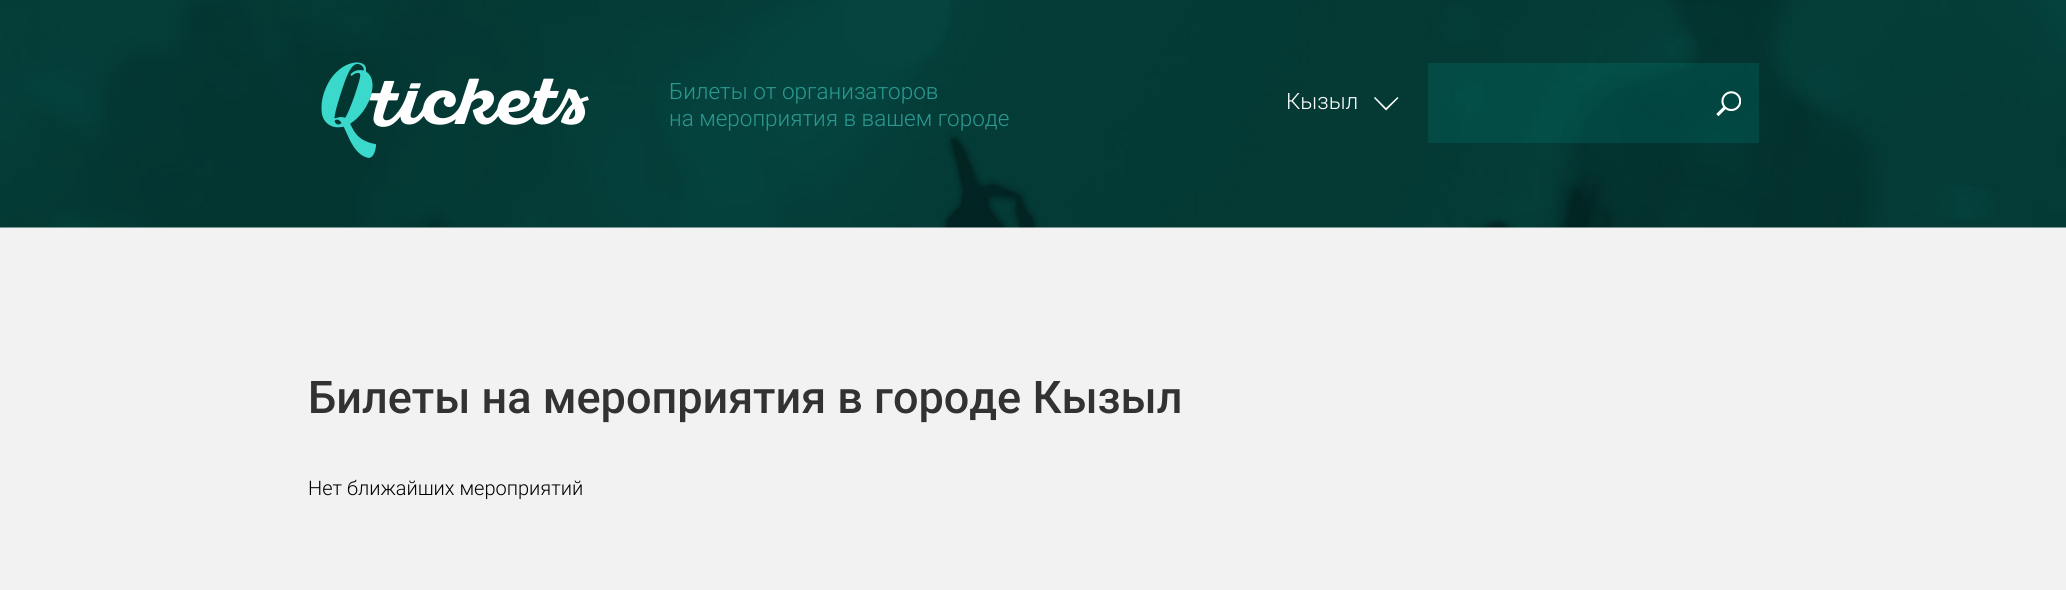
import math
import cairo

surface = cairo.ImageSurface(cairo.FORMAT_RGB24, 2066, 590)
ctx = cairo.Context(surface)
options = cairo.FontOptions()
options.set_hint_metrics(cairo.HINT_METRICS_OFF)
options.set_hint_style(cairo.HINT_STYLE_NONE)
ctx.set_font_options(options)
ctx.set_miter_limit(4)


def set_color(code):
    ctx.set_source_rgb(*(v / 255 for v in bytes.fromhex(code[-6:])))


def draw_text(x, y, s, family, size, color, bold=False, italic=False):
    ctx.select_font_face(family, cairo.FONT_SLANT_ITALIC if italic else cairo.FONT_SLANT_NORMAL, cairo.FONT_WEIGHT_BOLD if bold else cairo.FONT_WEIGHT_NORMAL)
    ctx.set_font_size(size)
    set_color(color)
    ctx.move_to(x, y)
    ctx.show_text(s)


def draw_image(path, x, y, w, h):
    ctx.save()
    ctx.set_source_surface(cairo.ImageSurface.create_from_png(path), x, y)
    ctx.rectangle(x, y, w, h)
    ctx.fill()
    ctx.restore()


set_color("#f2f2f2")
ctx.paint()
draw_image("assets/img1.png", 0, 0, 2066, 228)
draw_image("assets/img2.png", 321, 62, 268, 96)
draw_text(669, 99, "Билеты от организаторов", "Roboto Light", 22.5, "#2b9991")
draw_text(669, 126, "на мероприятия в вашем городе", "Roboto Light", 22.5, "#2b9991")
draw_text(1286, 109, "Кызыл", "Roboto Light", 22.5, "#ffffff")
ctx.new_path()
ctx.move_to(1398.5, 98)
ctx.line_to(1397.5, 97)
ctx.line_to(1386, 108)
ctx.line_to(1375, 97)
ctx.line_to(1374, 98)
ctx.line_to(1386, 110.5)
ctx.close_path()
ctx.fill()
ctx.set_source_rgba(0, 0.584, 0.537, 0.2)
ctx.rectangle(1428, 63, 331, 80)
ctx.fill()
draw_image("assets/img3.png", 1716, 91, 25, 25)
draw_text(308, 413, "Билеты на мероприятия в городе Кызыл", "Roboto Medium", 45, "#333232")
draw_text(308, 495, "Нет ближайших мероприятий", "Roboto Light", 20, "#000000")
surface.write_to_png("output.png")
